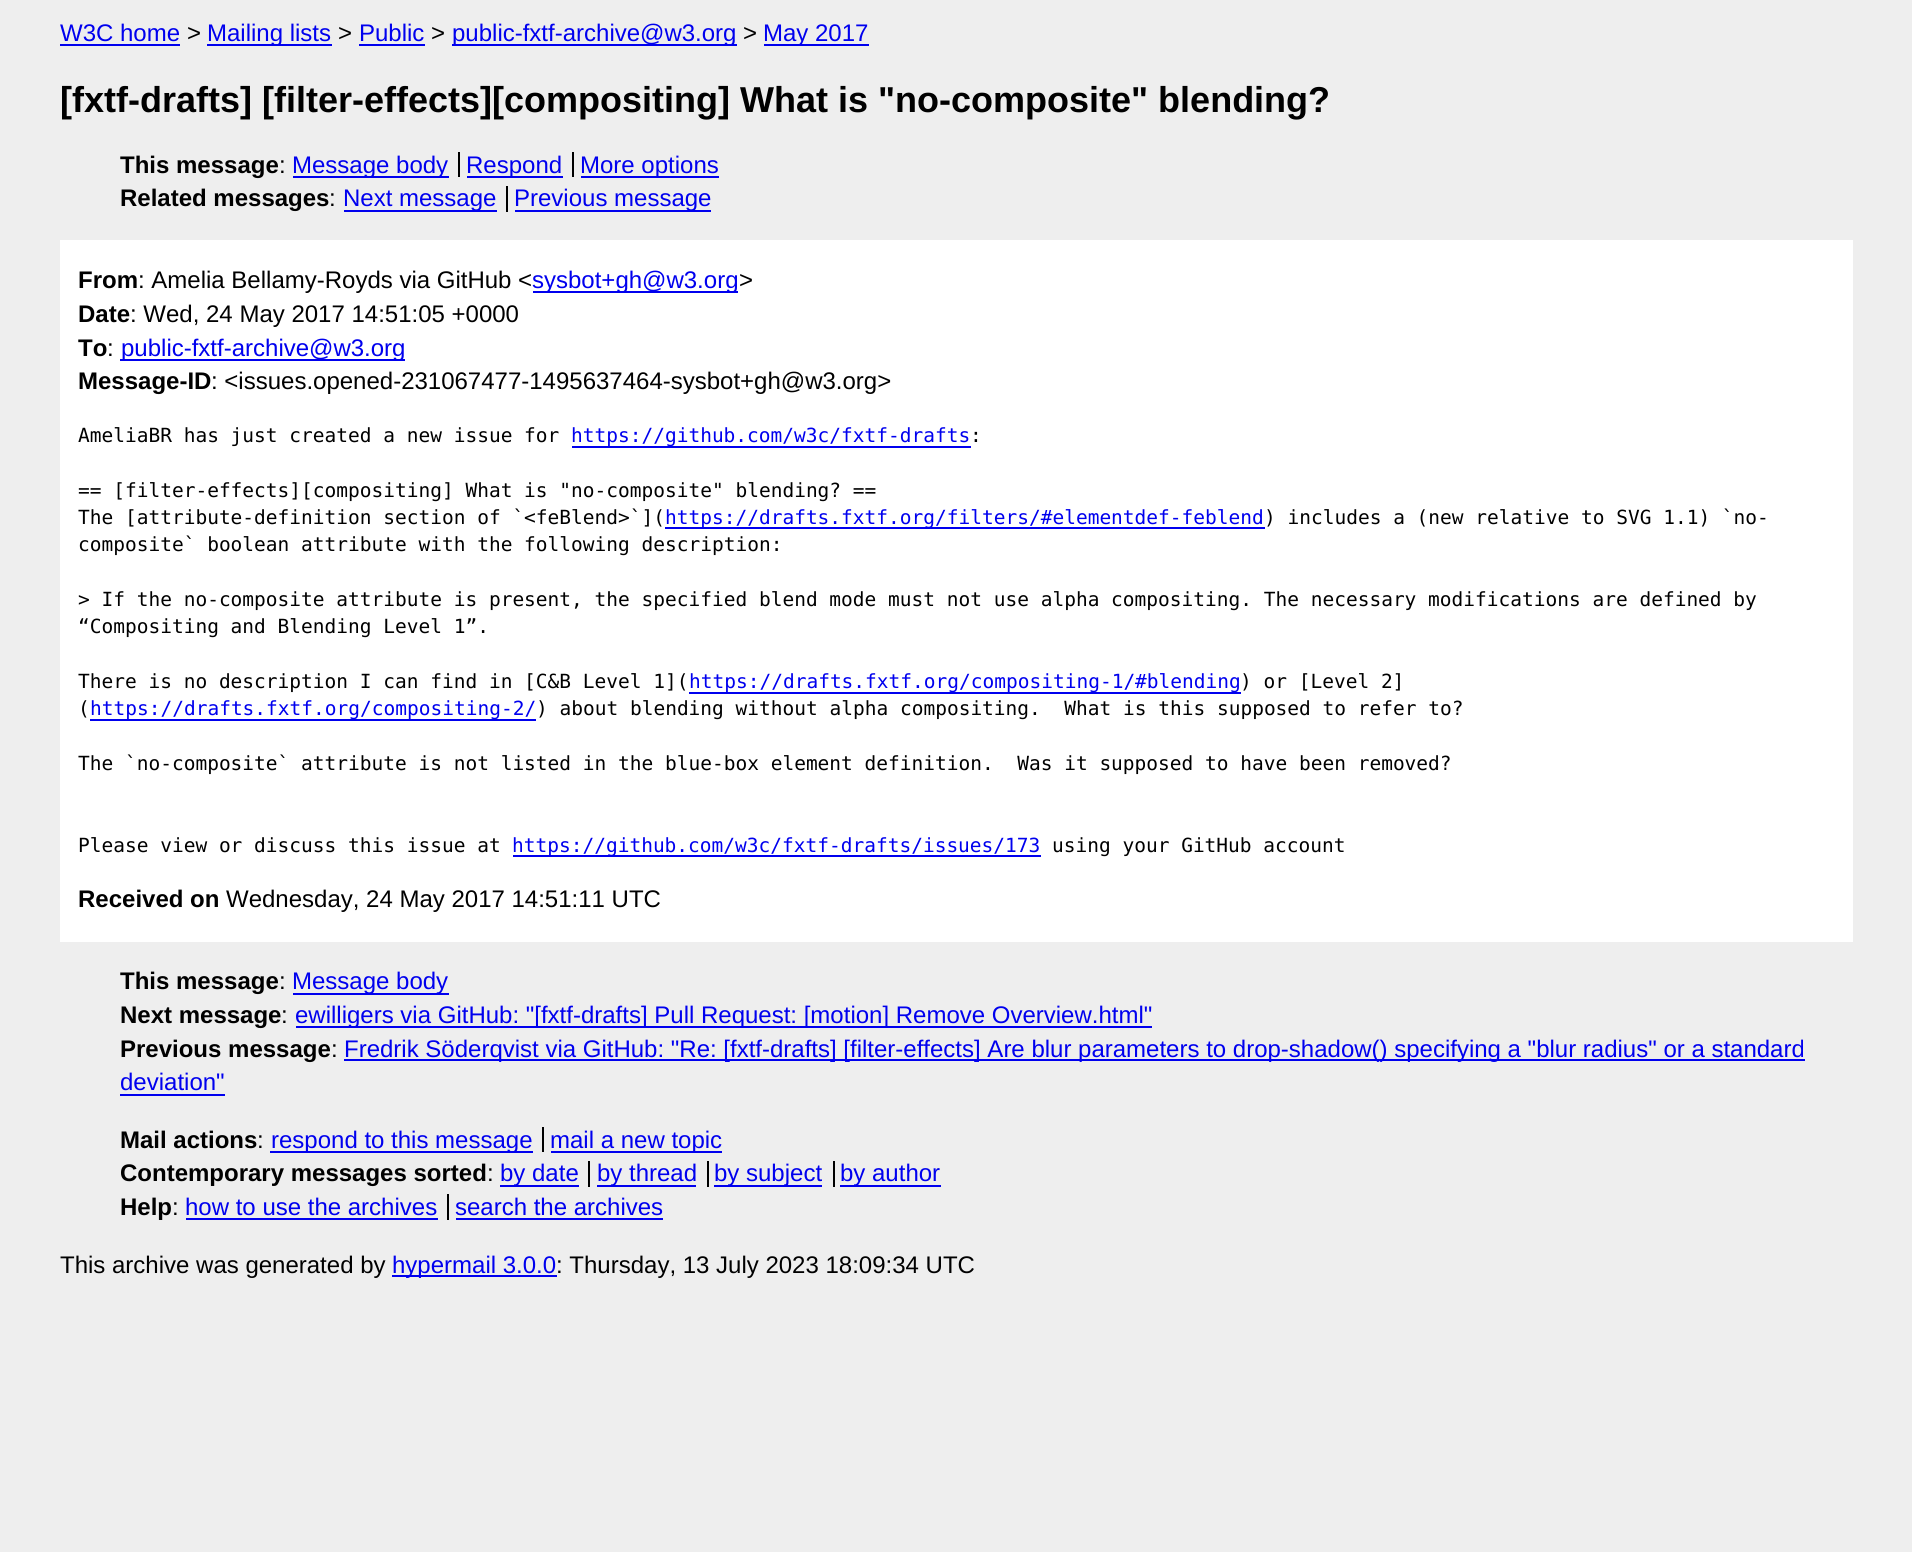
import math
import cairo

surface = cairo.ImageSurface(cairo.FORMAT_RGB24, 1912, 1552)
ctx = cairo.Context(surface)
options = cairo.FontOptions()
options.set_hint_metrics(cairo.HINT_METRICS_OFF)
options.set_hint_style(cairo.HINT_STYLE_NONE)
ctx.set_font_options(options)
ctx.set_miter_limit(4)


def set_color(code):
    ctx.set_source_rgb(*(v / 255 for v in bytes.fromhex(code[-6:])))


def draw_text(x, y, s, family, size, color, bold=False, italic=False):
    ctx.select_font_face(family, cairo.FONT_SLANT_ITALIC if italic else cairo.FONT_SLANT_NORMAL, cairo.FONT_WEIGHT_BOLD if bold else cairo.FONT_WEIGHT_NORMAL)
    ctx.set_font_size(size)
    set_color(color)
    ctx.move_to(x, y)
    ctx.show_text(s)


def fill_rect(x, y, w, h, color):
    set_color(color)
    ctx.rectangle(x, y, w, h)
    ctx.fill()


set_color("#eeeeee")
ctx.paint()
draw_text(60, 41, "W3C home", "Liberation Sans", 24, "#0000ee")
fill_rect(60, 44, 120, 2, "#0000ee")
draw_text(187, 41, ">", "Liberation Sans", 24, "#000000")
fill_rect(207, 44, 125, 2, "#0000ee")
draw_text(207, 41, "Mailing lists", "Liberation Sans", 24, "#0000ee")
draw_text(338, 41, ">", "Liberation Sans", 24, "#000000")
draw_text(359, 41, "Public", "Liberation Sans", 24, "#0000ee")
fill_rect(359, 44, 66, 2, "#0000ee")
draw_text(431, 41, ">", "Liberation Sans", 24, "#000000")
fill_rect(452, 44, 285, 2, "#0000ee")
draw_text(452, 41, "public-fxtf-archive@w3.org", "Liberation Sans", 24, "#0000ee")
draw_text(743, 41, ">", "Liberation Sans", 24, "#000000")
fill_rect(764, 44, 105, 2, "#0000ee")
draw_text(763, 41, "May 2017", "Liberation Sans", 24, "#0000ee")
draw_text(60, 112, "[fxtf-drafts] [filter-effects][compositing] What is \"no-composite\" blending?", "Liberation Sans", 36, "#000000", bold=True)
draw_text(120, 173, "This message", "Liberation Sans", 24, "#000000", bold=True)
draw_text(279, 173, ":", "Liberation Sans", 24, "#000000")
fill_rect(293, 176, 156, 2, "#0000ee")
draw_text(292, 173, "Message body", "Liberation Sans", 24, "#0000ee")
fill_rect(467, 176, 96, 2, "#0000ee")
draw_text(466, 173, "Respond", "Liberation Sans", 24, "#0000ee")
fill_rect(458, 152, 2, 25, "#000000")
fill_rect(581, 176, 138, 2, "#0000ee")
draw_text(580, 173, "More options", "Liberation Sans", 24, "#0000ee")
fill_rect(572, 152, 2, 25, "#000000")
draw_text(120, 206, "Related messages", "Liberation Sans", 24, "#000000", bold=True)
draw_text(329, 206, ":", "Liberation Sans", 24, "#000000")
fill_rect(344, 210, 153, 2, "#0000ee")
draw_text(343, 206, "Next message", "Liberation Sans", 24, "#0000ee")
fill_rect(515, 210, 196, 2, "#0000ee")
draw_text(514, 206, "Previous message", "Liberation Sans", 24, "#0000ee")
fill_rect(506, 186, 2, 26, "#000000")
fill_rect(60, 240, 1793, 702, "#ffffff")
draw_text(78, 288, "From", "Liberation Sans", 24, "#000000", bold=True)
draw_text(138, 288, ": Amelia Bellamy-Royds via GitHub <", "Liberation Sans", 24, "#000000")
fill_rect(533, 291, 205, 2, "#0000ee")
draw_text(532, 288, "sysbot+gh@w3.org", "Liberation Sans", 24, "#0000ee")
draw_text(739, 288, ">", "Liberation Sans", 24, "#000000")
draw_text(78, 322, "Date", "Liberation Sans", 24, "#000000", bold=True)
draw_text(130, 322, ": Wed, 24 May 2017 14:51:05 +0000", "Liberation Sans", 24, "#000000")
draw_text(78, 356, "To", "Liberation Sans", 24, "#000000", bold=True)
draw_text(107, 356, ":", "Liberation Sans", 24, "#000000")
fill_rect(120, 359, 285, 2, "#0000ee")
draw_text(121, 356, "public-fxtf-archive@w3.org", "Liberation Sans", 24, "#0000ee")
draw_text(78, 389, "Message-ID", "Liberation Sans", 24, "#000000", bold=True)
draw_text(211, 389, ": <issues.opened-231067477-1495637464-sysbot+gh@w3.org>", "Liberation Sans", 24, "#000000")
draw_text(78, 442, "AmeliaBR has just created a new issue for", "DejaVu Sans Mono", 19.5, "#000000")
fill_rect(572, 446, 399, 2, "#0000ee")
draw_text(571, 442, "https://github.com/w3c/fxtf-drafts", "DejaVu Sans Mono", 19.5, "#0000ee")
draw_text(970, 442, ":", "DejaVu Sans Mono", 19.5, "#000000")
draw_text(78, 497, "== [filter-effects][compositing] What is \"no-composite\" blending? ==", "DejaVu Sans Mono", 19.5, "#000000")
draw_text(78, 524, "The [attribute-definition section of `<feBlend>`](", "DejaVu Sans Mono", 19.5, "#000000")
fill_rect(665, 527, 600, 2, "#0000ee")
draw_text(665, 524, "https://drafts.fxtf.org/filters/#elementdef-feblend", "DejaVu Sans Mono", 19.5, "#0000ee")
draw_text(1264, 524, ") includes a (new relative to SVG 1.1) `no-", "DejaVu Sans Mono", 19.5, "#000000")
draw_text(78, 551, "composite` boolean attribute with the following description:", "DejaVu Sans Mono", 19.5, "#000000")
draw_text(78, 606, "> If the no-composite attribute is present, the specified blend mode must not use alpha compositing. The necessary modifications are defined by", "DejaVu Sans Mono", 19.5, "#000000")
draw_text(78, 633, "“Compositing and Blending Level 1”.", "DejaVu Sans Mono", 19.5, "#000000")
draw_text(78, 688, "There is no description I can find in [C&B Level 1](", "DejaVu Sans Mono", 19.5, "#000000")
fill_rect(689, 692, 552, 2, "#0000ee")
draw_text(689, 688, "https://drafts.fxtf.org/compositing-1/#blending", "DejaVu Sans Mono", 19.5, "#0000ee")
draw_text(1240, 688, ") or [Level 2]", "DejaVu Sans Mono", 19.5, "#000000")
draw_text(78, 715, "(", "DejaVu Sans Mono", 19.5, "#000000")
fill_rect(90, 719, 446, 2, "#0000ee")
draw_text(90, 715, "https://drafts.fxtf.org/compositing-2/", "DejaVu Sans Mono", 19.5, "#0000ee")
draw_text(536, 715, ") about blending without alpha compositing.  What is this supposed to refer to?", "DejaVu Sans Mono", 19.5, "#000000")
draw_text(78, 770, "The `no-composite` attribute is not listed in the blue-box element definition.  Was it supposed to have been removed?", "DejaVu Sans Mono", 19.5, "#000000")
draw_text(78, 852, "Please view or discuss this issue at", "DejaVu Sans Mono", 19.5, "#000000")
fill_rect(513, 855, 528, 2, "#0000ee")
draw_text(512, 852, "https://github.com/w3c/fxtf-drafts/issues/173", "DejaVu Sans Mono", 19.5, "#0000ee")
draw_text(1052, 852, "using your GitHub account", "DejaVu Sans Mono", 19.5, "#000000")
draw_text(78, 907, "Received on", "Liberation Sans", 24, "#000000", bold=True)
draw_text(226, 907, "Wednesday, 24 May 2017 14:51:11 UTC", "Liberation Sans", 24, "#000000")
draw_text(120, 989, "This message", "Liberation Sans", 24, "#000000", bold=True)
draw_text(279, 989, ":", "Liberation Sans", 24, "#000000")
fill_rect(293, 993, 156, 2, "#0000ee")
draw_text(292, 989, "Message body", "Liberation Sans", 24, "#0000ee")
draw_text(120, 1023, "Next message", "Liberation Sans", 24, "#000000", bold=True)
draw_text(281, 1023, ":", "Liberation Sans", 24, "#000000")
fill_rect(296, 1026, 856, 2, "#0000ee")
draw_text(295, 1023, "ewilligers via GitHub: \"[fxtf-drafts] Pull Request: [motion] Remove Overview.html\"", "Liberation Sans", 24, "#0000ee")
draw_text(120, 1057, "Previous message", "Liberation Sans", 24, "#000000", bold=True)
draw_text(331, 1057, ":", "Liberation Sans", 24, "#000000")
fill_rect(344, 1059, 1461, 2, "#0000ee")
draw_text(344, 1057, "Fredrik Söderqvist via GitHub: \"Re: [fxtf-drafts] [filter-effects] Are blur parameters to drop-shadow() specifying a \"blur radius\" or a standard", "Liberation Sans", 24, "#0000ee")
draw_text(120, 1090, "deviation\"", "Liberation Sans", 24, "#0000ee")
fill_rect(120, 1094, 105, 2, "#0000ee")
draw_text(120, 1148, "Mail actions", "Liberation Sans", 24, "#000000", bold=True)
draw_text(257, 1148, ":", "Liberation Sans", 24, "#000000")
fill_rect(270, 1151, 263, 2, "#0000ee")
draw_text(271, 1148, "respond to this message", "Liberation Sans", 24, "#0000ee")
fill_rect(551, 1151, 171, 2, "#0000ee")
draw_text(550, 1148, "mail a new topic", "Liberation Sans", 24, "#0000ee")
fill_rect(542, 1127, 2, 25, "#000000")
draw_text(120, 1181, "Contemporary messages sorted", "Liberation Sans", 24, "#000000", bold=True)
draw_text(487, 1181, ":", "Liberation Sans", 24, "#000000")
fill_rect(500, 1185, 79, 2, "#0000ee")
draw_text(500, 1181, "by date", "Liberation Sans", 24, "#0000ee")
fill_rect(597, 1185, 99, 2, "#0000ee")
draw_text(597, 1181, "by thread", "Liberation Sans", 24, "#0000ee")
fill_rect(588, 1161, 2, 26, "#000000")
fill_rect(714, 1185, 108, 2, "#0000ee")
draw_text(714, 1181, "by subject", "Liberation Sans", 24, "#0000ee")
fill_rect(707, 1161, 2, 26, "#000000")
fill_rect(840, 1185, 101, 2, "#0000ee")
draw_text(840, 1181, "by author", "Liberation Sans", 24, "#0000ee")
fill_rect(833, 1161, 2, 26, "#000000")
draw_text(120, 1215, "Help", "Liberation Sans", 24, "#000000", bold=True)
draw_text(172, 1215, ":", "Liberation Sans", 24, "#000000")
draw_text(185, 1215, "how to use the archives", "Liberation Sans", 24, "#0000ee")
fill_rect(186, 1218, 252, 2, "#0000ee")
draw_text(455, 1215, "search the archives", "Liberation Sans", 24, "#0000ee")
fill_rect(447, 1194, 2, 26, "#000000")
fill_rect(456, 1218, 207, 2, "#0000ee")
draw_text(60, 1273, "This archive was generated by", "Liberation Sans", 24, "#000000")
fill_rect(392, 1275, 165, 2, "#0000ee")
draw_text(392, 1273, "hypermail 3.0.0", "Liberation Sans", 24, "#0000ee")
draw_text(556, 1273, ": Thursday, 13 July 2023 18:09:34 UTC", "Liberation Sans", 24, "#000000")
surface.write_to_png("output.png")
